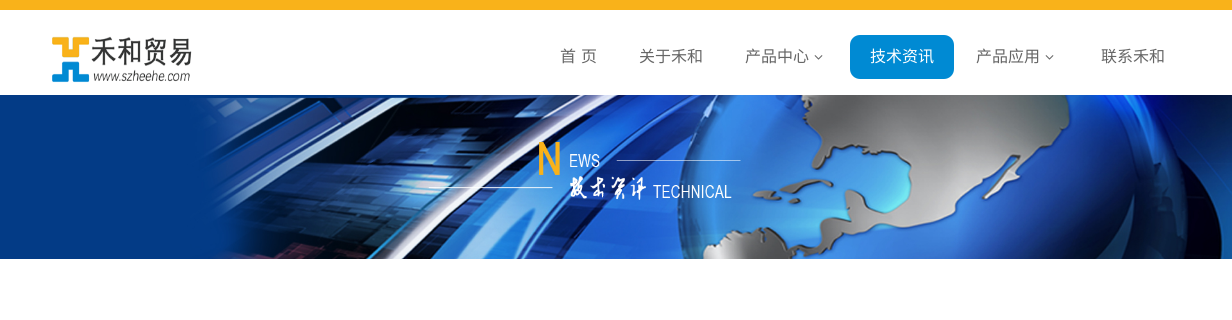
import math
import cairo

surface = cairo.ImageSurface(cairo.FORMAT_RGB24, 1232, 320)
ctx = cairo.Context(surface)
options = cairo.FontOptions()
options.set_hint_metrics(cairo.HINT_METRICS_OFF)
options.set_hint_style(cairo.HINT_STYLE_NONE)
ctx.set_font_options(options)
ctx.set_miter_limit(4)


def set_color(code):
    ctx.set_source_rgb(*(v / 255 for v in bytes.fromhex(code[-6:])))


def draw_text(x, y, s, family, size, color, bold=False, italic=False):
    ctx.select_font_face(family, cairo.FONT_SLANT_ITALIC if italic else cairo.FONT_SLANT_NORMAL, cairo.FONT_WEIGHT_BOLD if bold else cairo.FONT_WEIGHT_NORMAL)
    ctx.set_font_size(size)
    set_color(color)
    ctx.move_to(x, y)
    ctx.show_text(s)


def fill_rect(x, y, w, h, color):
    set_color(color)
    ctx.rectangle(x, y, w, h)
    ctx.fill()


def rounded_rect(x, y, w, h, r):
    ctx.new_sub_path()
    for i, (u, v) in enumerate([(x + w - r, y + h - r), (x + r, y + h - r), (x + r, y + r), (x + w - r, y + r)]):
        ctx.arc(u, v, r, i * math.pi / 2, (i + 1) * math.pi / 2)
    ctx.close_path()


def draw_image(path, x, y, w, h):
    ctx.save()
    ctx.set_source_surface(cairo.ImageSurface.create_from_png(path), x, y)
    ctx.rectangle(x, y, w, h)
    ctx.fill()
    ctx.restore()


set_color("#ffffff")
ctx.paint()
fill_rect(0, 0, 1232, 10, "#f9b21a")
draw_image("assets/img1.png", 52, 36, 140, 47)
draw_text(560, 62, "首", "Noto Sans CJK SC", 16, "#666666")
draw_text(581, 62, "页", "Noto Sans CJK SC", 16, "#666666")
draw_text(639, 62, "关于禾和", "Noto Sans CJK SC", 16, "#666666")
draw_text(745, 62, "产品中心", "Noto Sans CJK SC", 16, "#666666")
draw_image("assets/img2.png", 814, 55, 9, 5)
set_color("#008ad3")
rounded_rect(850, 35, 104, 44, 10)
ctx.fill()
draw_text(870, 62, "技术资讯", "Noto Sans CJK SC", 16, "#ffffff")
draw_text(976, 62, "产品应用", "Noto Sans CJK SC", 16, "#666666")
draw_image("assets/img2.png", 1045, 55, 9, 5)
draw_text(1101, 62, "联系禾和", "Noto Sans CJK SC", 16, "#666666")
draw_image("assets/img3.png", 0, 95, 1232, 164)
surface.write_to_png("output.png")
